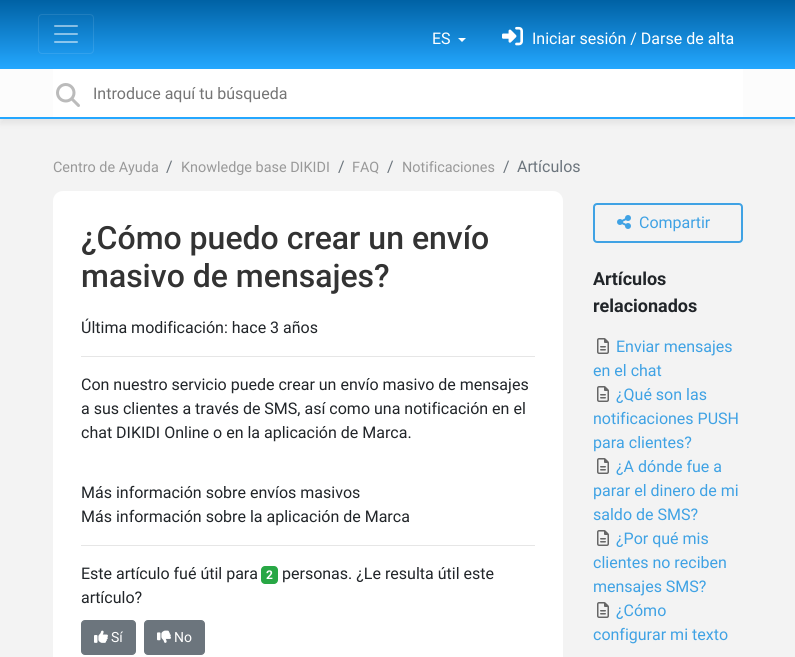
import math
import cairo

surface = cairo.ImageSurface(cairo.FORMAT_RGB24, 795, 657)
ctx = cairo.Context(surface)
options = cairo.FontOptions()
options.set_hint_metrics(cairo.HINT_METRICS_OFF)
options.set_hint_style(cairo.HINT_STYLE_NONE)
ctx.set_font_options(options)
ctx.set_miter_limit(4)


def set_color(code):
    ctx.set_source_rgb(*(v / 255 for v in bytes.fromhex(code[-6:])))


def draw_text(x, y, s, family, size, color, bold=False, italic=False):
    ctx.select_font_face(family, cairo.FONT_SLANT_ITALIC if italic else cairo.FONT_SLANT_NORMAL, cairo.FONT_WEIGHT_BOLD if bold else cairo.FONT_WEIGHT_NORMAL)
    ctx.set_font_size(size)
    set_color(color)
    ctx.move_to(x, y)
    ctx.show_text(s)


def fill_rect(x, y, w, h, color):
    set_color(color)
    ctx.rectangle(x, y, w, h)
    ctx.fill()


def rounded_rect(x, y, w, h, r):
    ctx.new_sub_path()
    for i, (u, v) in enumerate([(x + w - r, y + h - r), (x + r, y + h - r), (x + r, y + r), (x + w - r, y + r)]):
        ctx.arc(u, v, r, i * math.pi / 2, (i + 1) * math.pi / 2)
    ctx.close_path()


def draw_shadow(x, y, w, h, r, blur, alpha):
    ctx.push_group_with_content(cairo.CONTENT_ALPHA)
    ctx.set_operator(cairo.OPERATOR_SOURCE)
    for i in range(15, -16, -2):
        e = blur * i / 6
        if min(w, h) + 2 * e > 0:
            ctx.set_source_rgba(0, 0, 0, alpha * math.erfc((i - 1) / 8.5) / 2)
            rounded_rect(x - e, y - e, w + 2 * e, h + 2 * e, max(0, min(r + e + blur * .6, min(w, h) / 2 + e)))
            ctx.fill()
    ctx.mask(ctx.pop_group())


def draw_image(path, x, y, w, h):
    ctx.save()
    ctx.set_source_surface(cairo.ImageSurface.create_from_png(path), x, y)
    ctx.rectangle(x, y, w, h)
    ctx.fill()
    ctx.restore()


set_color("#f3f3f3")
ctx.paint()
gradient = cairo.LinearGradient(398, 0, 398, 69)
gradient.add_color_stop_rgba(0, 0, 0.384, 0.643, 1)
gradient.add_color_stop_rgba(1, 0.141, 0.655, 1, 1)
ctx.set_source(gradient)
ctx.rectangle(0, 0, 795, 69)
ctx.fill()
rounded_rect(38.5, 14.5, 55, 39, 3.5)
ctx.set_source_rgba(1, 1, 1, 0.1)
ctx.set_line_width(1)
ctx.stroke()
draw_image("assets/img1.png", 54, 25, 24, 18)
draw_text(432, 44, "ES", "Roboto", 16, "#ffffff")
ctx.new_path()
ctx.move_to(458, 38)
ctx.line_to(466, 38)
ctx.line_to(462, 42)
ctx.close_path()
ctx.fill()
draw_image("assets/img2.png", 502, 26, 21, 20)
draw_text(532, 44, "Iniciar sesión / Darse de alta", "Roboto", 16, "#ffffff")
set_color("#646464")
draw_shadow(0, 74, 795, 50, 0, 2.5, 0.1)
fill_rect(0, 69, 795, 48, "#fcfcfc")
fill_rect(0, 117, 795, 2, "#24a7ff")
fill_rect(53, 69, 690, 48, "#ffffff")
draw_image("assets/img3.png", 56, 83, 24, 24)
draw_text(93, 99, "Introduce aquí tu búsqueda", "Roboto", 16, "#757575")
draw_text(53, 172, "Centro de Ayuda", "Roboto", 14.4, "#999999")
draw_text(166, 172, "/", "Roboto", 16, "#6c757d")
draw_text(181, 172, "Knowledge base DIKIDI", "Roboto", 14.4, "#999999")
draw_text(338, 172, "/", "Roboto", 16, "#6c757d")
draw_text(352, 172, "FAQ", "Roboto", 14.4, "#999999")
draw_text(387, 172, "/", "Roboto", 16, "#6c757d")
draw_text(402, 172, "Notificaciones", "Roboto", 14.4, "#999999")
draw_text(503, 172, "/", "Roboto", 16, "#6c757d")
draw_text(517, 172, "Artículos", "Roboto", 16, "#6c757d")
set_color("#ffffff")
rounded_rect(53, 191, 510, 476, 10)
ctx.fill()
draw_text(81, 249, "¿Cómo puedo crear un envío", "Roboto Medium", 32, "#333333")
draw_text(81, 287, "masivo de mensajes?", "Roboto Medium", 32, "#333333")
draw_text(81, 333, "Última modificación: hace 3 años", "Roboto", 16, "#212529")
fill_rect(81, 356, 454, 1, "#e6e6e6")
draw_text(81, 390, "Con nuestro servicio puede crear un envío masivo de mensajes", "Roboto", 16, "#212529")
draw_text(81, 414, "a sus clientes a través de SMS, así como una notificación en el", "Roboto", 16, "#212529")
draw_text(81, 438, "chat DIKIDI Online o en la aplicación de Marca.", "Roboto", 16, "#212529")
draw_text(81, 498, "Más información sobre envíos masivos", "Roboto", 16, "#212529")
draw_text(81, 522, "Más información sobre la aplicación de Marca", "Roboto", 16, "#212529")
fill_rect(81, 545, 454, 1, "#e6e6e6")
draw_text(81, 579, "Este artículo fué útil para", "Roboto", 16, "#212529")
set_color("#28a745")
rounded_rect(261, 566, 17, 18, 4)
ctx.fill()
draw_text(266, 579, "2", "Roboto", 12, "#ffffff", bold=True)
draw_text(282, 579, "personas. ¿Le resulta útil este", "Roboto", 16, "#212529")
draw_text(81, 603, "artículo?", "Roboto", 16, "#212529")
set_color("#6c757d")
rounded_rect(81.5, 620.5, 54, 34, 3.5)
ctx.fill_preserve()
ctx.stroke()
draw_image("assets/img4.png", 94, 630, 14, 13)
draw_text(111, 642, "Sí", "Roboto", 14, "#ffffff")
set_color("#6c757d")
rounded_rect(144.5, 620.5, 60, 34, 3.5)
ctx.fill_preserve()
ctx.stroke()
draw_image("assets/img5.png", 157, 630, 14, 13)
draw_text(174, 642, "No", "Roboto", 14, "#ffffff")
rounded_rect(594, 204, 148, 38, 3)
set_color("#3fa2e4")
ctx.set_line_width(2)
ctx.stroke()
draw_image("assets/img6.png", 617, 215, 14, 14)
draw_text(639, 228, "Compartir", "Roboto", 16, "#3fa2e4")
draw_text(593, 285, "Artículos", "Roboto", 18, "#212529", bold=True)
draw_text(593, 312, "relacionados", "Roboto", 18, "#212529", bold=True)
draw_image("assets/img7.png", 597, 338, 12, 16)
draw_text(616, 352, "Enviar mensajes", "Roboto", 16, "#3fa2e4")
draw_text(593, 376, "en el chat", "Roboto", 16, "#3fa2e4")
draw_image("assets/img7.png", 597, 386, 12, 16)
draw_text(616, 400, "¿Qué son las", "Roboto", 16, "#3fa2e4")
draw_text(593, 424, "notificaciones PUSH", "Roboto", 16, "#3fa2e4")
draw_text(593, 448, "para clientes?", "Roboto", 16, "#3fa2e4")
draw_image("assets/img7.png", 597, 458, 12, 16)
draw_text(616, 472, "¿A dónde fue a", "Roboto", 16, "#3fa2e4")
draw_text(593, 496, "parar el dinero de mi", "Roboto", 16, "#3fa2e4")
draw_text(593, 520, "saldo de SMS?", "Roboto", 16, "#3fa2e4")
draw_image("assets/img7.png", 597, 530, 12, 16)
draw_text(616, 544, "¿Por qué mis", "Roboto", 16, "#3fa2e4")
draw_text(593, 568, "clientes no reciben", "Roboto", 16, "#3fa2e4")
draw_text(593, 592, "mensajes SMS?", "Roboto", 16, "#3fa2e4")
draw_image("assets/img7.png", 597, 602, 12, 16)
draw_text(616, 616, "¿Cómo", "Roboto", 16, "#3fa2e4")
draw_text(593, 640, "configurar mi texto", "Roboto", 16, "#3fa2e4")
surface.write_to_png("output.png")
